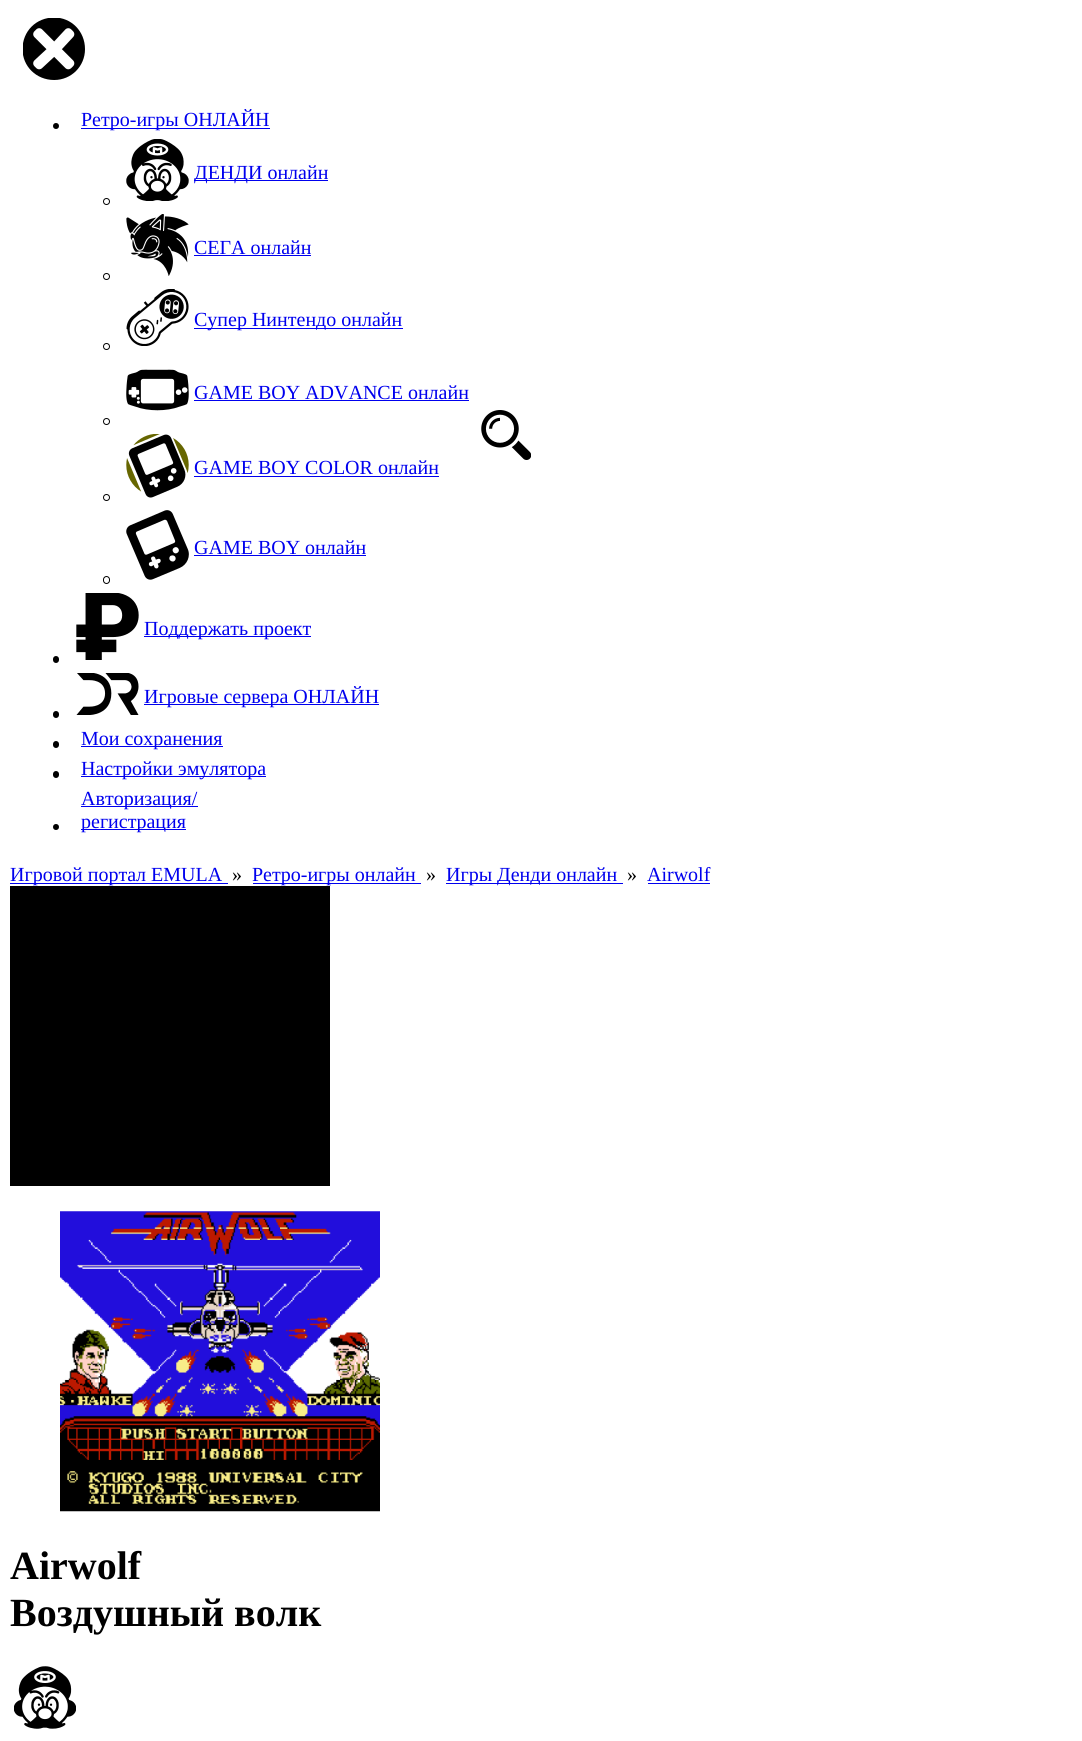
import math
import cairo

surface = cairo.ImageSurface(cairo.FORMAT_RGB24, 1082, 1741)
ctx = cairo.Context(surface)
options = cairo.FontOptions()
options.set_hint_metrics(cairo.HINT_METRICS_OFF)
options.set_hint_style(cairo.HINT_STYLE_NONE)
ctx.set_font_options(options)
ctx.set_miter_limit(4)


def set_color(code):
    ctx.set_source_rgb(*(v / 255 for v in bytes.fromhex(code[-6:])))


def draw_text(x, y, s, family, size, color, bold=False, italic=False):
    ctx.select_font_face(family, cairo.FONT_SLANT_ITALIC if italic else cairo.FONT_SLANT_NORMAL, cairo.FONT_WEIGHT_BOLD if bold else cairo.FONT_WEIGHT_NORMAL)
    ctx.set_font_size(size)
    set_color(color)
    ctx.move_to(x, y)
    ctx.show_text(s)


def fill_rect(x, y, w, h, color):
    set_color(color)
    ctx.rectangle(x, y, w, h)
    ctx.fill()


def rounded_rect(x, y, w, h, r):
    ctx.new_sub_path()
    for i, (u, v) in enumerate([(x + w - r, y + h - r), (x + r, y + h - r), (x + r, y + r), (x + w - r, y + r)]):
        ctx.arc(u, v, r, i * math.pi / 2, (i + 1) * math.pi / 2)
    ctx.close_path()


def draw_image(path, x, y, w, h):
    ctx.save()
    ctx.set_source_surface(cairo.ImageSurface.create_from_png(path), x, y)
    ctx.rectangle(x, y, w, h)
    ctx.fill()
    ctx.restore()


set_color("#ffffff")
ctx.paint()
draw_image("assets/img1.png", 23, 18, 62, 62)
set_color("#000000")
ctx.arc(56, 126, 3, 0, 2 * math.pi)
ctx.fill()
fill_rect(81, 128, 189, 1, "#0000ee")
draw_text(81, 126, "Ретро-игры ОНЛАЙН", "Liberation Serif", 20, "#0000ee")
draw_image("assets/img2.png", 126, 139, 63, 62)
fill_rect(194, 180, 134, 1, "#0000ee")
draw_text(194, 179, "ДЕНДИ онлайн", "Liberation Serif", 20, "#0000ee")
ctx.new_path()
ctx.arc(106.5, 201.5, 3, 0, 2 * math.pi)
set_color("#000000")
ctx.set_line_width(1)
ctx.stroke()
draw_image("assets/img3.png", 126, 214, 63, 62)
draw_text(194, 254, "СЕГА онлайн", "Liberation Serif", 20, "#0000ee")
fill_rect(194, 255, 117, 1, "#0000ee")
ctx.new_path()
ctx.arc(106.5, 276.5, 3, 0, 2 * math.pi)
set_color("#000000")
ctx.stroke()
draw_image("assets/img4.png", 126, 289, 63, 57)
fill_rect(194, 328, 209, 1, "#0000ee")
draw_text(194, 326, "Супер Нинтендо онлайн", "Liberation Serif", 20, "#0000ee")
ctx.new_path()
ctx.arc(106.5, 346.5, 3, 0, 2 * math.pi)
set_color("#000000")
ctx.stroke()
draw_image("assets/img5.png", 126, 369, 63, 42)
draw_text(194, 399, "GAME BOY ADVANCE онлайн", "Liberation Serif", 20, "#0000ee")
fill_rect(194, 400, 275, 1, "#0000ee")
ctx.new_path()
ctx.arc(106.5, 421.5, 3, 0, 2 * math.pi)
set_color("#000000")
ctx.stroke()
draw_image("assets/img6.png", 126, 434, 63, 64)
draw_text(194, 474, "GAME BOY COLOR онлайн", "Liberation Serif", 20, "#0000ee")
fill_rect(194, 476, 245, 1, "#0000ee")
ctx.new_path()
ctx.arc(106.5, 497.5, 3, 0, 2 * math.pi)
set_color("#000000")
ctx.stroke()
draw_image("assets/img7.png", 126, 510, 63, 70)
draw_text(194, 554, "GAME BOY онлайн", "Liberation Serif", 20, "#0000ee")
fill_rect(194, 555, 172, 1, "#0000ee")
rounded_rect(103.5, 576.5, 6, 7, 3)
set_color("#000000")
ctx.stroke()
draw_image("assets/img8.png", 76, 593, 63, 67)
fill_rect(144, 636, 167, 1, "#0000ee")
draw_text(144, 635, "Поддержать проект", "Liberation Serif", 20, "#0000ee")
set_color("#000000")
rounded_rect(53, 656, 6, 7, 3)
ctx.fill()
draw_image("assets/img9.png", 76, 673, 63, 42)
fill_rect(144, 704, 235, 1, "#0000ee")
draw_text(144, 703, "Игровые сервера ОНЛАЙН", "Liberation Serif", 20, "#0000ee")
set_color("#000000")
rounded_rect(53, 711, 6, 7, 3)
ctx.fill()
rounded_rect(53, 741, 6, 7, 3)
ctx.fill()
fill_rect(81, 746, 142, 1, "#0000ee")
draw_text(81, 745, "Мои сохранения", "Liberation Serif", 20, "#0000ee")
set_color("#000000")
rounded_rect(53, 771, 6, 7, 3)
ctx.fill()
fill_rect(81, 776, 185, 1, "#0000ee")
draw_text(81, 775, "Настройки эмулятора", "Liberation Serif", 20, "#0000ee")
set_color("#000000")
ctx.new_path()
ctx.arc(56, 827, 3, 0, 2 * math.pi)
ctx.fill()
fill_rect(81, 806, 117, 1, "#0000ee")
draw_text(81, 805, "Авторизация/", "Liberation Serif", 20, "#0000ee")
fill_rect(81, 829, 105, 1, "#0000ee")
draw_text(81, 828, "регистрация", "Liberation Serif", 20, "#0000ee")
draw_image("assets/img10.png", 481, 410, 50, 50)
fill_rect(10, 883, 218, 1, "#0000ee")
draw_text(10, 881, "Игровой портал EMULA", "Liberation Serif", 20, "#0000ee")
draw_text(232, 881, "»", "Liberation Serif", 20, "#000000")
fill_rect(253, 883, 168, 1, "#0000ee")
draw_text(252, 881, "Ретро-игры онлайн", "Liberation Serif", 20, "#0000ee")
draw_text(426, 881, "»", "Liberation Serif", 20, "#000000")
fill_rect(446, 883, 177, 1, "#0000ee")
draw_text(446, 881, "Игры Денди онлайн", "Liberation Serif", 20, "#0000ee")
draw_text(627, 881, "»", "Liberation Serif", 20, "#000000")
draw_text(647, 881, "Airwolf", "Liberation Serif", 20, "#0000ee")
fill_rect(648, 883, 62, 1, "#0000ee")
fill_rect(10, 886, 320, 300, "#000000")
draw_image("assets/img11.png", 60, 1211, 320, 301)
draw_text(10, 1579, "Airwolf", "Liberation Serif", 40, "#000000", bold=True)
draw_text(10, 1626, "Воздушный волк", "Liberation Serif", 40, "#000000", bold=True)
draw_image("assets/img12.png", 14, 1666, 62, 63)
surface.write_to_png("output.png")
